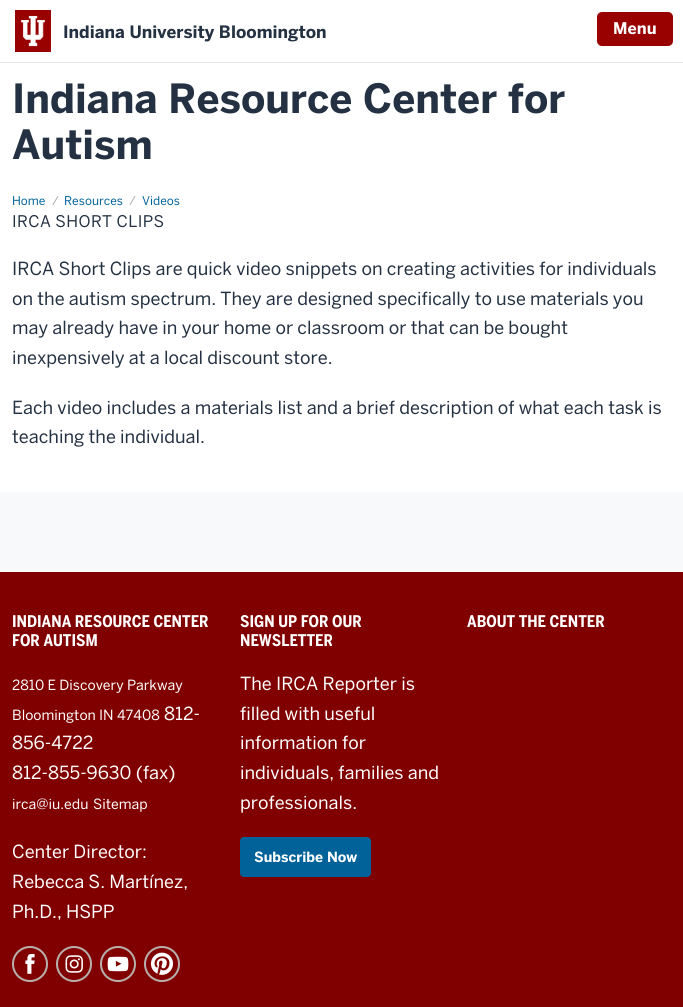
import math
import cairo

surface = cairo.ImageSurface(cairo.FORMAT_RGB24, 683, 1007)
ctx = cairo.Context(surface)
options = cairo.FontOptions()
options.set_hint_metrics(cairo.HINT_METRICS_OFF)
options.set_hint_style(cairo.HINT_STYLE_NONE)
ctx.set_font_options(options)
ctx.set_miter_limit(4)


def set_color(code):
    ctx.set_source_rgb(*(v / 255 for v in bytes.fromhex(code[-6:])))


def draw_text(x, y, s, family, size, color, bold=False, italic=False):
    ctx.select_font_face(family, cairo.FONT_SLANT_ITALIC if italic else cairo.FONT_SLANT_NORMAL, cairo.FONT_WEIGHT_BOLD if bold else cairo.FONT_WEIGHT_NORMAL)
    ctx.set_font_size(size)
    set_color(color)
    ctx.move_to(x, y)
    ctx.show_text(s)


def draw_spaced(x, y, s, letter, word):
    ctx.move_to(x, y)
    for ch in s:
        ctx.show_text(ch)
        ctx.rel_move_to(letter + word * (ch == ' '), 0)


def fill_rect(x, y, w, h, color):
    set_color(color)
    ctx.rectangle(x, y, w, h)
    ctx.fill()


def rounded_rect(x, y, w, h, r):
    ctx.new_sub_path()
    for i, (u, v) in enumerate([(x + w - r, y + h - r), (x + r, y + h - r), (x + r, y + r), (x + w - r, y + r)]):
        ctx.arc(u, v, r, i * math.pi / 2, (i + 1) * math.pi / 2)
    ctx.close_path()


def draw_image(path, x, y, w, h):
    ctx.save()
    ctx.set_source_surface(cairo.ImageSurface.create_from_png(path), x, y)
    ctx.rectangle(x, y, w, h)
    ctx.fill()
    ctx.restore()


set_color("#ffffff")
ctx.paint()
fill_rect(0, 62, 683, 1, "#e2e7e9")
draw_image("assets/img1.png", 15, 10, 36, 42)
draw_text(63, 38, "Indiana University Bloomington", "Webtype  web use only", 17, "#243142", bold=True)
set_color("#990000")
rounded_rect(597, 12, 76, 34, 5)
ctx.fill()
draw_text(613, 34, "Menu", "Webtype  web use only", 16, "#ffffff", bold=True)
draw_text(12, 113, "Indiana Resource Center for", "Webtype  web use only", 40, "#243142", bold=True)
draw_text(12, 159, "Autism", "Webtype  web use only", 40, "#243142", bold=True)
draw_text(12, 205, "Home", "Webtype  web use only", 12, "#006298")
draw_text(52, 205, "/", "Webtype  web use only", 12, "#aaaaaa")
draw_text(64, 205, "Resources", "Webtype  web use only", 12, "#006298")
draw_text(129, 205, "/", "Webtype  web use only", 12, "#aaaaaa")
draw_text(142, 205, "Videos", "Webtype  web use only", 12, "#006298")
ctx.set_font_size(16)
set_color("#243142")
draw_spaced(12, 227, "IRCA SHORT CLIPS", 0.4, 0)
draw_text(12, 275, "IRCA Short Clips are quick video snippets on creating activities for individuals", "Webtype  web use only", 18, "#243142")
draw_text(12, 305, "on the autism spectrum. They are designed specifically to use materials you", "Webtype  web use only", 18, "#243142")
draw_text(12, 334, "may already have in your home or classroom or that can be bought", "Webtype  web use only", 18, "#243142")
draw_text(12, 364, "inexpensively at a local discount store.", "Webtype  web use only", 18, "#243142")
draw_text(12, 414, "Each video includes a materials list and a brief description of what each task is", "Webtype  web use only", 18, "#243142")
draw_text(12, 443, "teaching the individual.", "Webtype  web use only", 18, "#243142")
fill_rect(0, 492, 683, 80, "#f8f9fa")
fill_rect(0, 572, 683, 435, "#800000")
draw_text(12, 627, "INDIANA RESOURCE CENTER", "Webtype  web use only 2", 16, "#ffffff", bold=True)
draw_text(12, 646, "FOR AUTISM", "Webtype  web use only 2", 16, "#ffffff", bold=True)
draw_text(12, 690, "2810 E Discovery Parkway", "Webtype  web use only", 14, "#ffffff")
draw_text(12, 720, "Bloomington IN 47408", "Webtype  web use only", 14, "#ffffff")
draw_text(164, 720, "812-", "Webtype  web use only", 18, "#ffffff")
draw_text(12, 749, "856-4722", "Webtype  web use only", 18, "#ffffff")
draw_text(12, 779, "812-855-9630 (fax)", "Webtype  web use only", 18, "#ffffff")
draw_text(12, 809, "irca@iu.edu", "Webtype  web use only", 14, "#ffffff")
draw_text(93, 809, "Sitemap", "Webtype  web use only", 14, "#ffffff")
draw_text(12, 858, "Center Director:", "Webtype  web use only", 18, "#ffffff")
draw_text(12, 888, "Rebecca S. Martínez,", "Webtype  web use only", 18, "#ffffff")
draw_text(12, 918, "Ph.D., HSPP", "Webtype  web use only", 18, "#ffffff")
ctx.new_path()
ctx.arc(30, 964, 17, 0, 2 * math.pi)
set_color("#b8b0ab")
ctx.stroke()
draw_image("assets/img2.png", 25, 954, 10, 20)
ctx.arc(74, 964, 17, 0, 2 * math.pi)
ctx.stroke()
draw_image("assets/img3.png", 65, 955, 18, 18)
ctx.arc(118, 964, 17, 0, 2 * math.pi)
ctx.stroke()
draw_image("assets/img4.png", 107, 956, 22, 16)
ctx.arc(162, 964, 17, 0, 2 * math.pi)
ctx.stroke()
draw_image("assets/img5.png", 150, 952, 24, 23)
draw_text(240, 627, "SIGN UP FOR OUR", "Webtype  web use only 2", 16, "#ffffff", bold=True)
draw_text(240, 646, "NEWSLETTER", "Webtype  web use only 2", 16, "#ffffff", bold=True)
draw_text(240, 690, "The IRCA Reporter is", "Webtype  web use only", 18, "#ffffff")
draw_text(240, 720, "filled with useful", "Webtype  web use only", 18, "#ffffff")
draw_text(240, 749, "information for", "Webtype  web use only", 18, "#ffffff")
draw_text(240, 779, "individuals, families and", "Webtype  web use only", 18, "#ffffff")
draw_text(240, 809, "professionals.", "Webtype  web use only", 18, "#ffffff")
set_color("#006298")
rounded_rect(241, 838, 129, 38, 3)
ctx.fill_preserve()
ctx.stroke()
draw_text(254, 862, "Subscribe Now", "Webtype  web use only", 14, "#ffffff", bold=True)
draw_text(467, 627, "ABOUT THE CENTER", "Webtype  web use only 2", 16, "#ffffff", bold=True)
surface.write_to_png("output.png")
